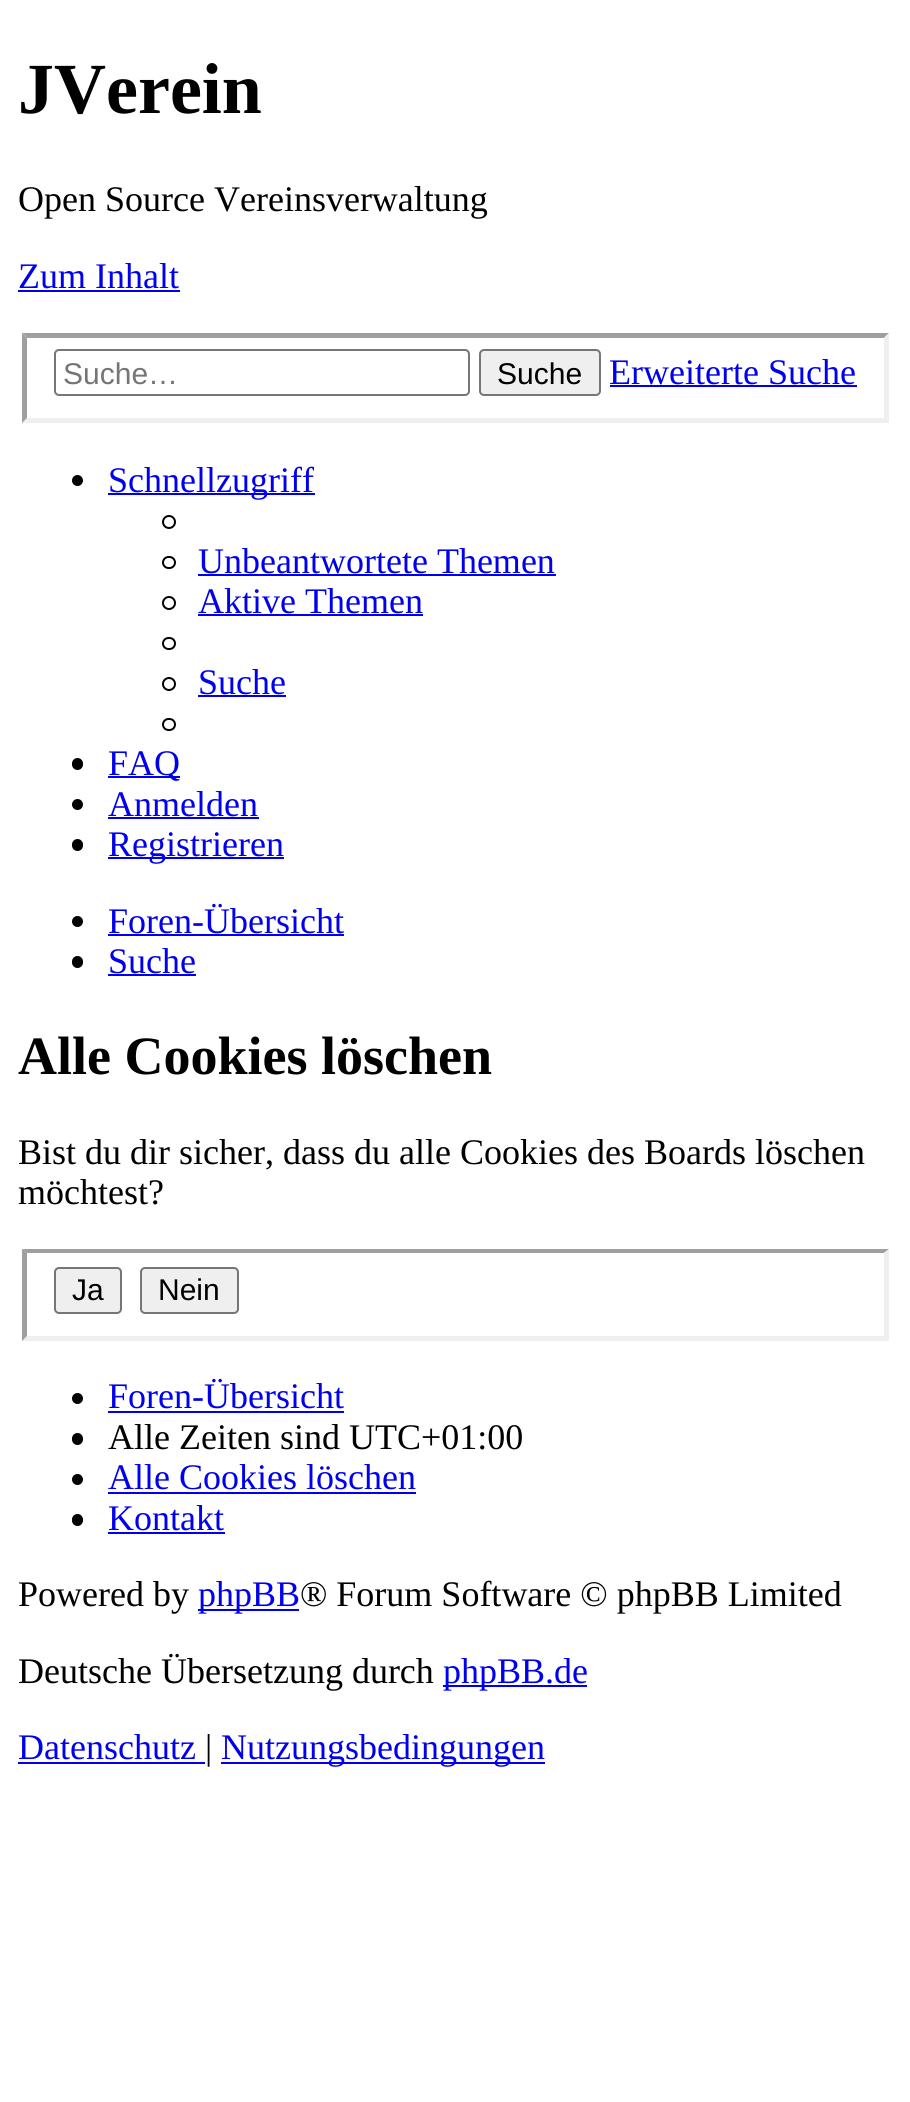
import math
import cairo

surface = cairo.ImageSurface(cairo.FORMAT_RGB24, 910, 2102)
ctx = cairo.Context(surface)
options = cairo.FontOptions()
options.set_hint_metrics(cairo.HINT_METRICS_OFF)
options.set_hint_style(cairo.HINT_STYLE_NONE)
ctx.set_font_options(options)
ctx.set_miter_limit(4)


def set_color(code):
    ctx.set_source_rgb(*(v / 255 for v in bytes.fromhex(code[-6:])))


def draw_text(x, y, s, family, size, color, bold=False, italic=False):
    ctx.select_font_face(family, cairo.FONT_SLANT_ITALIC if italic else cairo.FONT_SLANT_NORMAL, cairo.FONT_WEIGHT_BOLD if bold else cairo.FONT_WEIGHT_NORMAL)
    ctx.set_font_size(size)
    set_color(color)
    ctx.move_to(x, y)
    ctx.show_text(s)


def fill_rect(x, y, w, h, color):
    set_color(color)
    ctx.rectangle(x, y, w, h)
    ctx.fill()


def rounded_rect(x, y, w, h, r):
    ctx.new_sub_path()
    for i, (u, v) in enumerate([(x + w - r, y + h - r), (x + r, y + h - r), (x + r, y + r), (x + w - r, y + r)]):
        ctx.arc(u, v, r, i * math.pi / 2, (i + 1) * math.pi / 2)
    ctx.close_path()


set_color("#ffffff")
ctx.paint()
draw_text(18, 113, "JVerein", "Liberation Serif", 72, "#000000", bold=True)
draw_text(18, 211, "Open Source Vereinsverwaltung", "Liberation Serif", 36, "#000000")
draw_text(18, 288, "Zum Inhalt", "Liberation Serif", 36, "#0000ee")
fill_rect(18, 290, 162, 2, "#0000ee")
set_color("#9f9f9f")
ctx.new_path()
ctx.move_to(22, 333)
ctx.line_to(889, 333)
ctx.line_to(884, 338)
ctx.line_to(27, 338)
ctx.close_path()
ctx.fill()
set_color("#efefef")
ctx.new_path()
ctx.move_to(889, 333)
ctx.line_to(889, 423)
ctx.line_to(884, 418)
ctx.line_to(884, 338)
ctx.close_path()
ctx.fill()
ctx.new_path()
ctx.move_to(889, 423)
ctx.line_to(22, 423)
ctx.line_to(27, 418)
ctx.line_to(884, 418)
ctx.close_path()
ctx.fill()
set_color("#9f9f9f")
ctx.new_path()
ctx.move_to(22, 423)
ctx.line_to(22, 333)
ctx.line_to(27, 338)
ctx.line_to(27, 418)
ctx.close_path()
ctx.fill()
rounded_rect(55, 350, 414, 45, 4)
set_color("#767676")
ctx.stroke()
draw_text(63, 384, "Suche…", "Liberation Sans", 30, "#757575")
set_color("#efefef")
rounded_rect(480, 350, 120, 45, 4)
ctx.fill_preserve()
set_color("#767676")
ctx.stroke()
draw_text(497, 384, "Suche", "Liberation Sans", 30, "#000000")
draw_text(609, 384, "Erweiterte Suche", "Liberation Serif", 36, "#0000ee")
fill_rect(610, 385, 247, 2, "#0000ee")
set_color("#000000")
ctx.new_path()
ctx.arc(77.5, 480.5, 5.5, 0, 2 * math.pi)
ctx.fill()
fill_rect(108, 493, 207, 2, "#0000ee")
draw_text(108, 492, "Schnellzugriff", "Liberation Serif", 36, "#0000ee")
ctx.new_path()
ctx.arc(169, 522, 6, 0, 2 * math.pi)
set_color("#000000")
ctx.stroke()
rounded_rect(163, 557, 12, 11, 5.5)
ctx.stroke()
draw_text(198, 573, "Unbeantwortete Themen", "Liberation Serif", 36, "#0000ee")
fill_rect(198, 574, 358, 2, "#0000ee")
ctx.new_path()
ctx.arc(169, 603, 6, 0, 2 * math.pi)
set_color("#000000")
ctx.stroke()
draw_text(198, 613, "Aktive Themen", "Liberation Serif", 36, "#0000ee")
fill_rect(198, 614, 225, 2, "#0000ee")
rounded_rect(163, 638, 12, 11, 5.5)
set_color("#000000")
ctx.stroke()
ctx.arc(169, 684, 6, 0, 2 * math.pi)
ctx.stroke()
draw_text(198, 694, "Suche", "Liberation Serif", 36, "#0000ee")
fill_rect(198, 695, 88, 2, "#0000ee")
rounded_rect(163, 719, 12, 11, 5.5)
set_color("#000000")
ctx.stroke()
rounded_rect(72, 758, 11, 12, 5.5)
ctx.fill()
fill_rect(108, 776, 72, 2, "#0000ee")
draw_text(108, 775, "FAQ", "Liberation Serif", 36, "#0000ee")
set_color("#000000")
ctx.new_path()
ctx.arc(77.5, 804.5, 5.5, 0, 2 * math.pi)
ctx.fill()
draw_text(108, 816, "Anmelden", "Liberation Serif", 36, "#0000ee")
fill_rect(108, 817, 151, 2, "#0000ee")
set_color("#000000")
rounded_rect(72, 839, 11, 12, 5.5)
ctx.fill()
fill_rect(108, 857, 176, 2, "#0000ee")
draw_text(108, 856, "Registrieren", "Liberation Serif", 36, "#0000ee")
set_color("#000000")
ctx.new_path()
ctx.arc(77.5, 921.5, 5.5, 0, 2 * math.pi)
ctx.fill()
draw_text(108, 933, "Foren-Übersicht", "Liberation Serif", 36, "#0000ee")
fill_rect(108, 934, 236, 2, "#0000ee")
set_color("#000000")
rounded_rect(72, 956, 11, 12, 5.5)
ctx.fill()
draw_text(108, 973, "Suche", "Liberation Serif", 36, "#0000ee")
fill_rect(108, 974, 88, 2, "#0000ee")
draw_text(18, 1074, "Alle Cookies löschen", "Liberation Serif", 54, "#000000", bold=True)
draw_text(18, 1164, "Bist du dir sicher, dass du alle Cookies des Boards löschen", "Liberation Serif", 36, "#000000")
draw_text(18, 1204, "möchtest?", "Liberation Serif", 36, "#000000")
set_color("#9f9f9f")
ctx.new_path()
ctx.move_to(22, 1249)
ctx.line_to(889, 1249)
ctx.line_to(884, 1253)
ctx.line_to(27, 1253)
ctx.close_path()
ctx.fill()
set_color("#efefef")
ctx.new_path()
ctx.move_to(889, 1249)
ctx.line_to(889, 1341)
ctx.line_to(884, 1336)
ctx.line_to(884, 1253)
ctx.close_path()
ctx.fill()
ctx.new_path()
ctx.move_to(889, 1341)
ctx.line_to(22, 1341)
ctx.line_to(27, 1336)
ctx.line_to(884, 1336)
ctx.close_path()
ctx.fill()
set_color("#9f9f9f")
ctx.new_path()
ctx.move_to(22, 1341)
ctx.line_to(22, 1249)
ctx.line_to(27, 1253)
ctx.line_to(27, 1336)
ctx.close_path()
ctx.fill()
set_color("#efefef")
rounded_rect(55, 1268, 66, 45, 4)
ctx.fill_preserve()
set_color("#767676")
ctx.stroke()
draw_text(72, 1300, "Ja", "Liberation Sans", 30, "#000000")
set_color("#efefef")
rounded_rect(141, 1268, 97, 45, 4)
ctx.fill_preserve()
set_color("#767676")
ctx.stroke()
draw_text(158, 1300, "Nein", "Liberation Sans", 30, "#000000")
ctx.new_path()
ctx.arc(77.5, 1398.5, 5.5, 0, 2 * math.pi)
ctx.fill()
draw_text(108, 1408, "Foren-Übersicht", "Liberation Serif", 36, "#0000ee")
fill_rect(108, 1411, 236, 2, "#0000ee")
set_color("#000000")
rounded_rect(72, 1433, 11, 12, 5.5)
ctx.fill()
draw_text(108, 1449, "Alle Zeiten sind UTC+01:00", "Liberation Serif", 36, "#000000")
ctx.new_path()
ctx.arc(77.5, 1479.5, 5.5, 0, 2 * math.pi)
ctx.fill()
draw_text(108, 1489, "Alle Cookies löschen", "Liberation Serif", 36, "#0000ee")
fill_rect(108, 1492, 308, 2, "#0000ee")
set_color("#000000")
rounded_rect(72, 1514, 11, 12, 5.5)
ctx.fill()
draw_text(108, 1530, "Kontakt", "Liberation Serif", 36, "#0000ee")
fill_rect(108, 1532, 117, 2, "#0000ee")
draw_text(18, 1606, "Powered by", "Liberation Serif", 36, "#000000")
fill_rect(198, 1609, 101, 2, "#0000ee")
draw_text(198, 1606, "phpBB", "Liberation Serif", 36, "#0000ee")
draw_text(300, 1606, "® Forum Software © phpBB Limited", "Liberation Serif", 36, "#000000")
draw_text(18, 1683, "Deutsche Übersetzung durch", "Liberation Serif", 36, "#000000")
fill_rect(443, 1685, 144, 2, "#0000ee")
draw_text(443, 1683, "phpBB.de", "Liberation Serif", 36, "#0000ee")
draw_text(18, 1759, "Datenschutz", "Liberation Serif", 36, "#0000ee")
fill_rect(18, 1762, 187, 2, "#0000ee")
draw_text(205, 1759, "|", "Liberation Serif", 36, "#000000")
fill_rect(221, 1762, 324, 2, "#0000ee")
draw_text(221, 1759, "Nutzungsbedingungen", "Liberation Serif", 36, "#0000ee")
surface.write_to_png("output.png")
